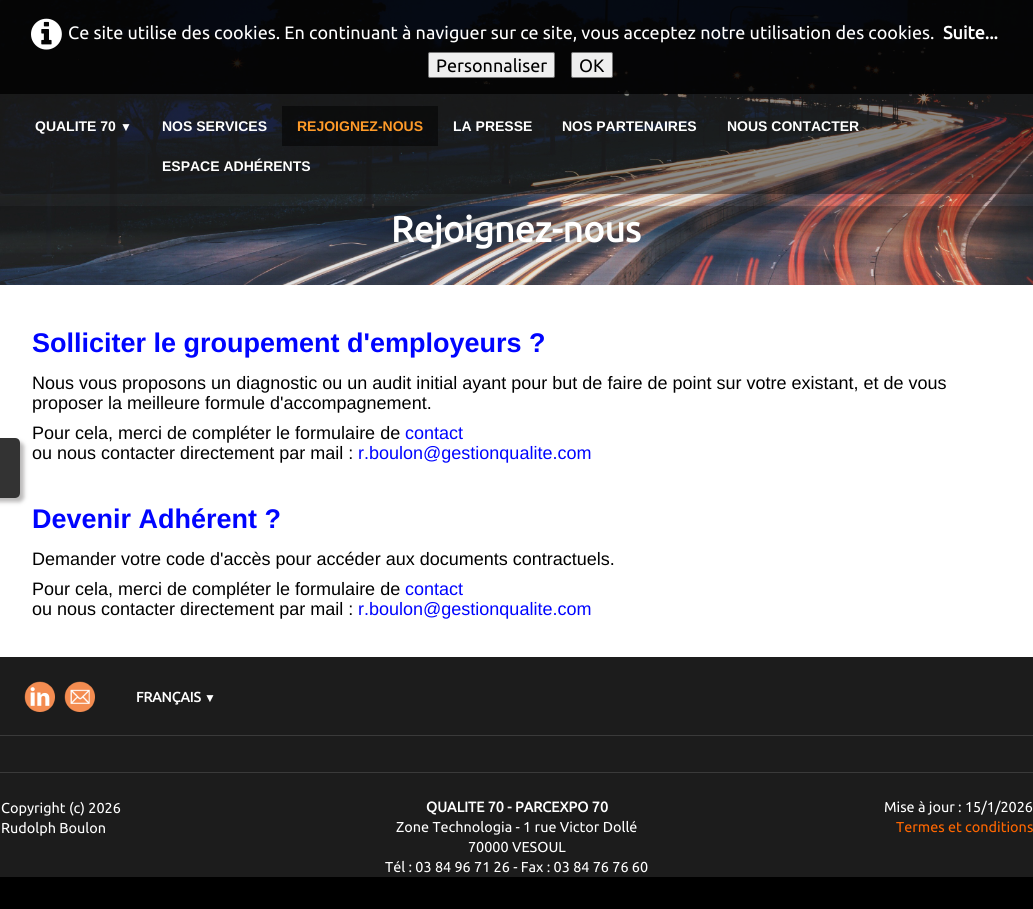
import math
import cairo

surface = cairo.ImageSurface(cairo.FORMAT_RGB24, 1033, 909)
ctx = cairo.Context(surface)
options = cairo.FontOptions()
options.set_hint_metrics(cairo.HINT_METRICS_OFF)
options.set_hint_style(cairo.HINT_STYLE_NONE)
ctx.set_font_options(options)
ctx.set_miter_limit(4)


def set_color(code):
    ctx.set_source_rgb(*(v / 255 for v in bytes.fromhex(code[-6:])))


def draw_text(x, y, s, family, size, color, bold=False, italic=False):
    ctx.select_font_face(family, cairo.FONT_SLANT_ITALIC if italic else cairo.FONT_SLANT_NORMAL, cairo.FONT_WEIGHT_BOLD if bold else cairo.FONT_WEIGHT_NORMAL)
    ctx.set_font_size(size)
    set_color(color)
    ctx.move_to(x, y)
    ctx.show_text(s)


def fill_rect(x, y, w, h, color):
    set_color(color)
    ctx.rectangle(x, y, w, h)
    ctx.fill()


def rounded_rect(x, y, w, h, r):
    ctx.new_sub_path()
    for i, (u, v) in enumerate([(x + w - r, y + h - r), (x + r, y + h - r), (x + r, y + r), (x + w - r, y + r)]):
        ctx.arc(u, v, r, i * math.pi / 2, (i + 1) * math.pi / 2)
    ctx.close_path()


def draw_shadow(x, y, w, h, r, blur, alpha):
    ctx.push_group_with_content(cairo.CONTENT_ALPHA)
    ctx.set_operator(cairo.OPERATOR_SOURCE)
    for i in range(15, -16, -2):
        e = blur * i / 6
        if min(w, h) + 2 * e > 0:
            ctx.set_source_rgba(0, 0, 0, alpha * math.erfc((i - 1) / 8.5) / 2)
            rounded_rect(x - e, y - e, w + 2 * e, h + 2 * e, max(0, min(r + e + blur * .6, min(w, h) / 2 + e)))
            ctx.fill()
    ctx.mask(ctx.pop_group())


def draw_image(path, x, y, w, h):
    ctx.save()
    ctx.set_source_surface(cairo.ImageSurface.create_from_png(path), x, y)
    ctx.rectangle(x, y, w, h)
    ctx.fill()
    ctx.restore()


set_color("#000000")
ctx.paint()
draw_image("assets/img1.png", 0, 0, 1033, 285)
ctx.set_source_rgba(0.071, 0.071, 0.071, 0.43)
rounded_rect(0, 0, 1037, 194, 4)
ctx.fill()
ctx.set_source_rgba(0, 0, 0, 0.8)
ctx.rectangle(0, 0, 1033, 94)
ctx.fill()
draw_image("assets/img2.png", 31, 18, 31, 32)
draw_text(68, 39, "Ce site utilise des cookies. En continuant à naviguer sur ce site, vous acceptez notre utilisation des cookies.", "Ubuntu", 18, "#ffffff")
draw_text(943, 39, "Suite...", "Ubuntu", 18, "#ffffff", bold=True)
set_color("#efefef")
rounded_rect(428.5, 52.5, 126, 25, 1.5)
ctx.fill_preserve()
set_color("#767676")
ctx.set_line_width(1)
ctx.stroke()
draw_text(436, 72, "Personnaliser", "Ubuntu", 18, "#000000")
set_color("#efefef")
rounded_rect(571.5, 52.5, 41, 25, 1.5)
ctx.fill_preserve()
set_color("#767676")
ctx.stroke()
draw_text(579, 72, "OK", "Ubuntu", 18, "#000000")
draw_text(35, 131, "QUALITE 70", "Liberation Sans", 14, "#ffffff", bold=True)
draw_text(120, 131, "▼", "Liberation Sans", 12, "#ffffff", bold=True)
draw_text(162, 131, "NOS SERVICES", "Liberation Sans", 14, "#ffffff", bold=True)
ctx.set_source_rgba(0, 0, 0, 0.5)
ctx.rectangle(282, 106, 156, 40)
ctx.fill()
draw_text(297, 131, "REJOIGNEZ-NOUS", "Liberation Sans", 14, "#ff9b29", bold=True)
draw_text(453, 131, "LA PRESSE", "Liberation Sans", 14, "#ffffff", bold=True)
draw_text(562, 131, "NOS PARTENAIRES", "Liberation Sans", 14, "#ffffff", bold=True)
draw_text(727, 131, "NOUS CONTACTER", "Liberation Sans", 14, "#ffffff", bold=True)
draw_text(162, 171, "ESPACE ADHÉRENTS", "Liberation Sans", 14, "#ffffff", bold=True)
draw_text(391, 242, "Rejoignez-nous", "Ubuntu", 36, "#ffffff", bold=True)
fill_rect(0, 285, 1033, 372, "#ffffff")
draw_text(32, 352, "Solliciter le groupement d'employeurs ?", "Liberation Sans", 27, "#0004ff", bold=True)
draw_text(32, 389, "Nous vous proposons un diagnostic ou un audit initial ayant pour but de faire de point sur votre existant, et de vous", "Liberation Sans", 18, "#000000")
draw_text(32, 409, "proposer la meilleure formule d'accompagnement.", "Liberation Sans", 18, "#000000")
draw_text(32, 439, "Pour cela, merci de compléter le formulaire de", "Liberation Sans", 18, "#000000")
draw_text(405, 439, "contact", "Liberation Sans", 18, "#0004ff")
draw_text(32, 459, "ou nous contacter directement par mail :", "Liberation Sans", 18, "#000000")
draw_text(358, 459, "r.boulon@gestionqualite.com", "Liberation Sans", 18, "#0004ff")
draw_text(32, 528, "Devenir Adhérent ?", "Liberation Sans", 27, "#0004ff", bold=True)
draw_text(32, 565, "Demander votre code d'accès pour accéder aux documents contractuels.", "Liberation Sans", 18, "#000000")
draw_text(32, 595, "Pour cela, merci de compléter le formulaire de", "Liberation Sans", 18, "#000000")
draw_text(405, 595, "contact", "Liberation Sans", 18, "#0004ff")
draw_text(32, 615, "ou nous contacter directement par mail :", "Liberation Sans", 18, "#000000")
draw_text(358, 615, "r.boulon@gestionqualite.com", "Liberation Sans", 18, "#0004ff")
fill_rect(0, 657, 1033, 220, "#1c1c1c")
draw_image("assets/img3.png", 24, 681, 31, 31)
draw_image("assets/img4.png", 64, 681, 31, 31)
draw_text(136, 702, "FRANÇAIS", "Ubuntu", 14, "#ffffff", bold=True)
draw_text(204, 702, "▼", "Liberation Serif", 12, "#ffffff", bold=True)
fill_rect(0, 735, 1033, 1, "#3a3a3a")
fill_rect(0, 772, 1033, 1, "#3a3a3a")
draw_text(1, 813, "Copyright (c) 2026", "Ubuntu", 14.4, "#ffffff")
draw_text(1, 833, "Rudolph Boulon", "Ubuntu", 14.4, "#ffffff")
draw_text(426, 812, "QUALITE 70 - PARCEXPO 70", "Ubuntu", 14.4, "#ffffff", bold=True)
draw_text(396, 832, "Zone Technologia - 1 rue Victor Dollé", "Ubuntu", 14.4, "#ffffff")
draw_text(468, 852, "70000 VESOUL", "Ubuntu", 14.4, "#ffffff")
draw_text(385, 872, "Tél : 03 84 96 71 26 - Fax : 03 84 76 76 60", "Ubuntu", 14.4, "#ffffff")
draw_text(884, 812, "Mise à jour : 15/1/2026", "Ubuntu", 14.4, "#ffffff")
draw_text(896, 832, "Termes et conditions", "Ubuntu", 14.4, "#ff6600")
ctx.save()
ctx.set_fill_rule(cairo.FILL_RULE_EVEN_ODD)
ctx.new_path()
ctx.move_to(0, 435)
ctx.line_to(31, 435)
ctx.line_to(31, 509)
ctx.line_to(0, 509)
ctx.close_path()
ctx.move_to(-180, 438)
ctx.line_to(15, 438)
ctx.curve_to(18, 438, 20, 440, 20, 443)
ctx.line_to(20, 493)
ctx.curve_to(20, 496, 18, 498, 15, 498)
ctx.line_to(-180, 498)
ctx.close_path()
ctx.clip()
set_color("#797777")
draw_shadow(-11, 442, 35, 60, 5, 2, 0.51)
ctx.restore()
ctx.set_source_rgba(0, 0, 0, 0.8)
ctx.new_path()
ctx.move_to(-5, 438)
ctx.line_to(15, 438)
ctx.curve_to(18, 438, 20, 440, 20, 443)
ctx.line_to(20, 493)
ctx.curve_to(20, 496, 18, 498, 15, 498)
ctx.line_to(-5, 498)
ctx.close_path()
ctx.fill()
surface.write_to_png("output.png")
